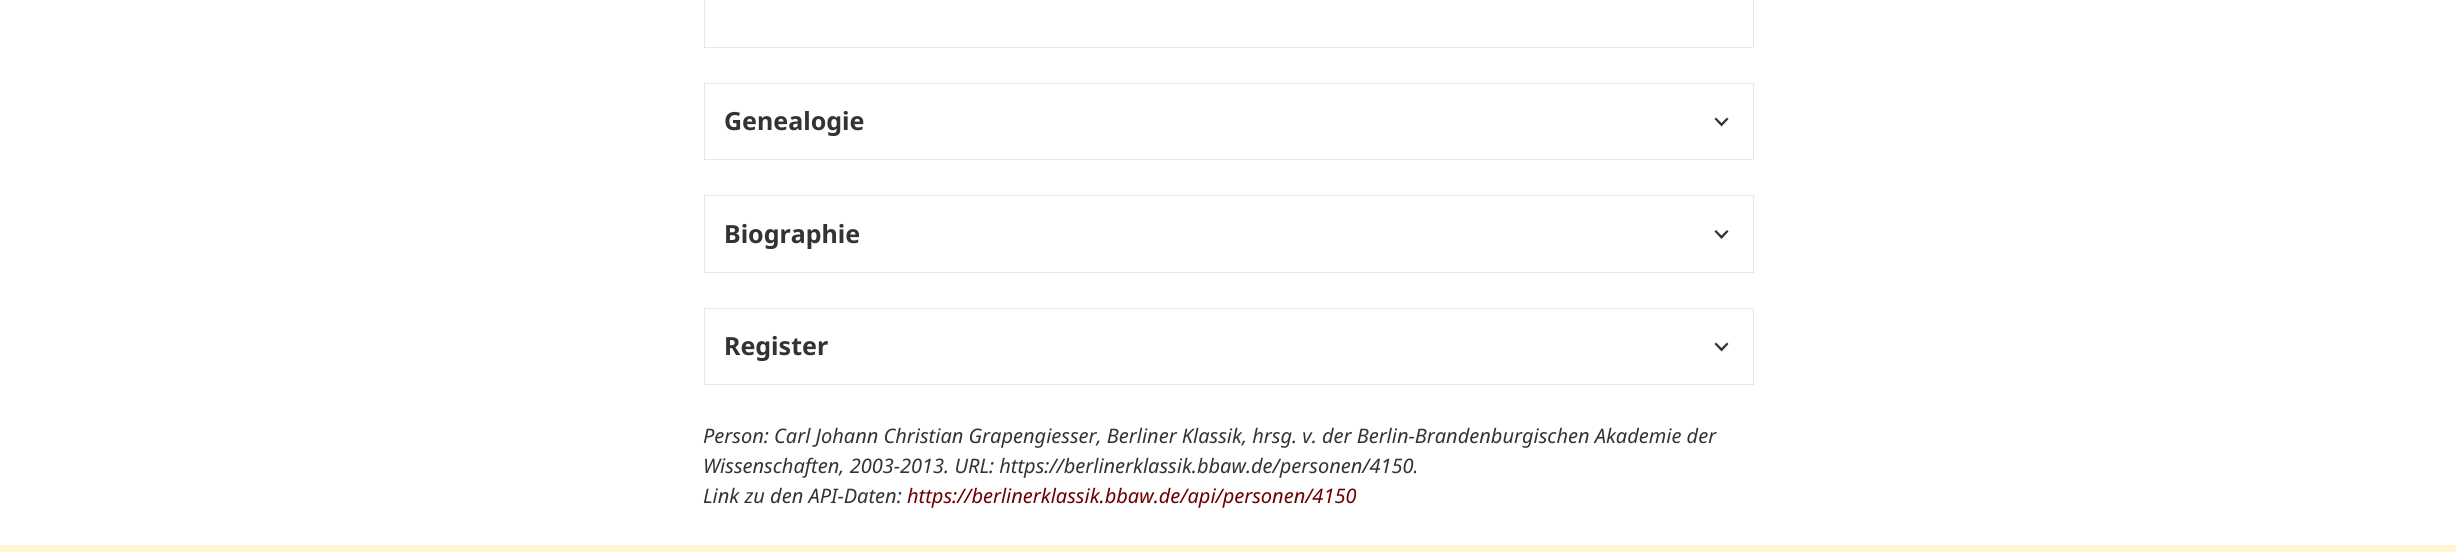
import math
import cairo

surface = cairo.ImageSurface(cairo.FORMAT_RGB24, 2456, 552)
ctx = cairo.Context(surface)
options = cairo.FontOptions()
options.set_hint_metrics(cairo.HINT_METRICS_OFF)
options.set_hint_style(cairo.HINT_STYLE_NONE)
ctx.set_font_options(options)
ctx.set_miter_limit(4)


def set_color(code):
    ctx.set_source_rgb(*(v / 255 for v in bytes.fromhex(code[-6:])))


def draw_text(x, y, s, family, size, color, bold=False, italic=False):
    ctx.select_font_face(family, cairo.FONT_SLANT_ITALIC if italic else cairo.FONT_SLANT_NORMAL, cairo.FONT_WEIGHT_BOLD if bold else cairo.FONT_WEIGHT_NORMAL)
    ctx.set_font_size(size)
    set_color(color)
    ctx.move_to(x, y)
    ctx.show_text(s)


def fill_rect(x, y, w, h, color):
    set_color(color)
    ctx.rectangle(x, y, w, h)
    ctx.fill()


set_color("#ffffff")
ctx.paint()
ctx.rectangle(704.5, -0.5, 1049, 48)
set_color("#e5e7eb")
ctx.set_line_width(1)
ctx.stroke()
ctx.rectangle(704.5, 83.5, 1049, 76)
ctx.stroke()
draw_text(724, 130, "Genealogie", "Noto Sans", 25, "#333333", bold=True)
ctx.new_path()
ctx.move_to(1727, 117.5)
ctx.line_to(1721.5, 123)
ctx.line_to(1716, 117.5)
ctx.line_to(1714.5, 119)
ctx.line_to(1721.5, 126.5)
ctx.line_to(1728.5, 119)
ctx.close_path()
ctx.fill()
ctx.rectangle(704.5, 195.5, 1049, 77)
set_color("#e5e7eb")
ctx.stroke()
draw_text(724, 243, "Biographie", "Noto Sans", 25, "#333333", bold=True)
ctx.new_path()
ctx.move_to(1727, 230)
ctx.line_to(1721.5, 235.5)
ctx.line_to(1716, 230)
ctx.line_to(1714.5, 231.5)
ctx.line_to(1721.5, 239)
ctx.line_to(1728.5, 231.5)
ctx.close_path()
ctx.fill()
ctx.rectangle(704.5, 308.5, 1049, 76)
set_color("#e5e7eb")
ctx.stroke()
draw_text(724, 355, "Register", "Noto Sans", 25, "#333333", bold=True)
ctx.new_path()
ctx.move_to(1727, 342.5)
ctx.line_to(1721.5, 348)
ctx.line_to(1716, 342.5)
ctx.line_to(1714.5, 344)
ctx.line_to(1721.5, 351.5)
ctx.line_to(1728.5, 344)
ctx.close_path()
ctx.fill()
draw_text(703, 443, "Person: Carl Johann Christian Grapengiesser, Berliner Klassik, hrsg. v. der Berlin-Brandenburgischen Akademie der", "Noto Sans", 20, "#333333", italic=True)
draw_text(703, 473, "Wissenschaften, 2003-2013. URL: https://berlinerklassik.bbaw.de/personen/4150.", "Noto Sans", 20, "#333333", italic=True)
draw_text(703, 503, "Link zu den API-Daten:", "Noto Sans", 20, "#333333", italic=True)
draw_text(907, 503, "https://berlinerklassik.bbaw.de/api/personen/4150", "Noto Sans", 20, "#6b0000", italic=True)
fill_rect(0, 545, 2456, 7, "#fff5d1")
surface.write_to_png("output.png")
